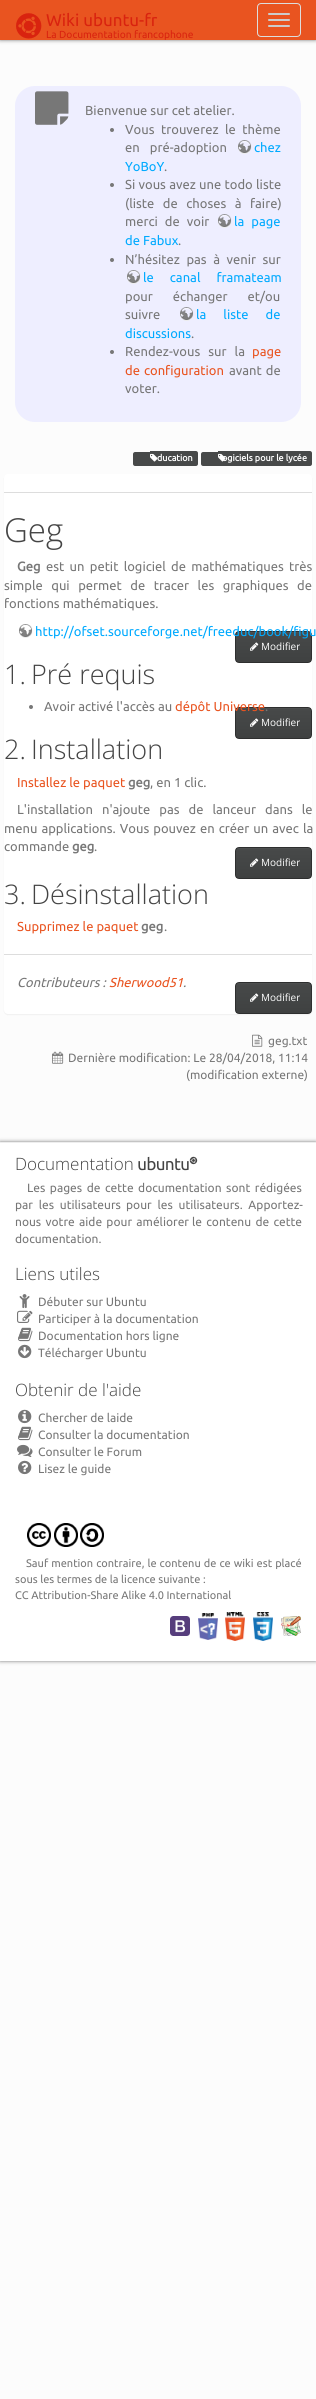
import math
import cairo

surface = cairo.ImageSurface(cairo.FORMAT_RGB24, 316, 2399)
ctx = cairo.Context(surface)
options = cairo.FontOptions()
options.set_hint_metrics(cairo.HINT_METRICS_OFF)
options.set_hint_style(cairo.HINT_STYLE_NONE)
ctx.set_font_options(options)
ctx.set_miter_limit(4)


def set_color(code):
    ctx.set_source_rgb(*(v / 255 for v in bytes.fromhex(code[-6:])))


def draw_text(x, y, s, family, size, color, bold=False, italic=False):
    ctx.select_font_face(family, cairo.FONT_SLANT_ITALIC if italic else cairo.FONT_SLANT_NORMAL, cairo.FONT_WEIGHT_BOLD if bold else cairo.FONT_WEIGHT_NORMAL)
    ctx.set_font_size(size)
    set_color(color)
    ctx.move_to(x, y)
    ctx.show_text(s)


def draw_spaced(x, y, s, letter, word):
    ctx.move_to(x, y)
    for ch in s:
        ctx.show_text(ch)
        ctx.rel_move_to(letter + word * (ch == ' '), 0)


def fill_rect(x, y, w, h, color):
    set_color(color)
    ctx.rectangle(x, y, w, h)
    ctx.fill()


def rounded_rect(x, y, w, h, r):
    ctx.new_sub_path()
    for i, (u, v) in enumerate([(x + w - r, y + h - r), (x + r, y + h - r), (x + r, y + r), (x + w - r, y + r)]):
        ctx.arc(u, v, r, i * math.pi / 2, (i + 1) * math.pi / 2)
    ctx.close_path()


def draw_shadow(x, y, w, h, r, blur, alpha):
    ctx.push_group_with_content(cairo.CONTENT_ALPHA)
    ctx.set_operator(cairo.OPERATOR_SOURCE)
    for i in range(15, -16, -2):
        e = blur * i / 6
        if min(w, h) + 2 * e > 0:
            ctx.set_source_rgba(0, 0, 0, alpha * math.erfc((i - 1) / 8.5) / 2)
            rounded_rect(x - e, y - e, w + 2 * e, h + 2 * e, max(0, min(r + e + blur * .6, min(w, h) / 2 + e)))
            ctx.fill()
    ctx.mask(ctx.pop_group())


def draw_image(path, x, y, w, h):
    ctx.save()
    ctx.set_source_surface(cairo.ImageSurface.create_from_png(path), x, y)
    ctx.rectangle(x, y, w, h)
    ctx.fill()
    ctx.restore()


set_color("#fcfcfc")
ctx.paint()
set_color("#777777")
draw_shadow(0, 0, 316, 40, 0, 2, 1)
fill_rect(0, 0, 316, 40, "#e95420")
draw_image("assets/img1.png", 16, 13, 26, 26)
draw_text(46, 26, "Wiki ubuntu-fr", "Ubuntu", 17, "#d9230f")
draw_text(46, 38, "La Documentation francophone", "Ubuntu", 10.25, "#d9230f")
rounded_rect(257.5, 3.5, 43, 33, 3.5)
set_color("#dddddd")
ctx.set_line_width(1)
ctx.stroke()
set_color("#cccccc")
rounded_rect(268, 13, 22, 2, 1)
ctx.fill()
rounded_rect(268, 19, 22, 2, 1)
ctx.fill()
rounded_rect(268, 25, 22, 2, 1)
ctx.fill()
set_color("#eeeeff")
rounded_rect(15, 86, 286, 336, 20)
ctx.fill()
draw_image("assets/img2.png", 35, 91, 34, 34)
draw_text(85, 115, "Bienvenue sur cet atelier.", "Ubuntu", 13, "#777777")
ctx.new_path()
ctx.arc(112, 130, 2, 0, 2 * math.pi)
ctx.fill()
draw_spaced(125, 134, "Vous trouverez le thème", 0, 3.5)
draw_spaced(125, 152, "en pré-adoption", 0, 7)
draw_image("assets/img3.png", 238, 140, 14, 14)
draw_text(254, 152, "chez", "Ubuntu", 13, "#00aaff")
draw_text(125, 171, "YoBoY", "Ubuntu", 13, "#00aaff")
draw_text(164, 171, ".", "Ubuntu", 13, "#777777")
ctx.new_path()
ctx.arc(112, 185, 2, 0, 2 * math.pi)
ctx.fill()
draw_spaced(125, 189, "Si vous avez une todo liste", 0, 0.25)
draw_spaced(125, 208, "(liste de choses à faire)", 0, 5.5)
draw_spaced(125, 226, "merci de voir", 0, 4)
draw_image("assets/img3.png", 218, 214, 14, 14)
set_color("#00aaff")
draw_spaced(234, 226, "la page", 0, 4)
draw_text(125, 245, "de Fabux", "Ubuntu", 13, "#00aaff")
draw_text(178, 245, ".", "Ubuntu", 13, "#777777")
ctx.new_path()
ctx.arc(112, 260, 2, 0, 2 * math.pi)
ctx.fill()
draw_spaced(125, 264, "N’hésitez pas à venir sur", 0, 3.5)
draw_image("assets/img3.png", 127, 270, 14, 14)
set_color("#00aaff")
draw_spaced(143, 282, "le canal framateam", 0, 13)
set_color("#777777")
draw_spaced(125, 301, "pour échanger et/ou", 0, 17)
draw_text(125, 319, "suivre", "Ubuntu", 13, "#777777")
draw_image("assets/img3.png", 180, 307, 14, 14)
set_color("#00aaff")
draw_spaced(196, 319, "la liste de", 0, 14)
draw_text(125, 338, "discussions", "Ubuntu", 13, "#00aaff")
draw_text(191, 338, ".", "Ubuntu", 13, "#777777")
ctx.new_path()
ctx.arc(112, 352, 2, 0, 2 * math.pi)
ctx.fill()
draw_spaced(125, 356, "Rendez-vous sur la", 0, 5)
draw_text(252, 356, "page", "Ubuntu", 13, "#e95420")
draw_spaced(125, 375, "de configuration", 0, 1)
set_color("#777777")
draw_spaced(229, 375, "avant de", 0, 1)
draw_text(125, 393, "voter.", "Ubuntu", 13, "#777777")
set_color("#474949")
ctx.new_path()
ctx.move_to(135, 452)
ctx.line_to(150, 452)
ctx.line_to(150, 466)
ctx.line_to(135, 466)
ctx.curve_to(134, 466, 133, 465, 133, 464)
ctx.line_to(133, 454)
ctx.curve_to(133, 453, 134, 452, 135, 452)
ctx.close_path()
ctx.fill()
fill_rect(150, 451, 2, 15, "#474949")
ctx.new_path()
ctx.move_to(152, 451)
ctx.line_to(196, 451)
ctx.curve_to(197, 451, 198, 452, 198, 453)
ctx.line_to(198, 464)
ctx.curve_to(198, 465, 197, 466, 196, 466)
ctx.line_to(152, 466)
ctx.close_path()
ctx.fill()
draw_image("assets/img4.png", 150, 453, 8, 9)
draw_text(157, 461, "ducation", "Ubuntu", 9, "#ffffff", bold=True)
set_color("#474949")
ctx.new_path()
ctx.move_to(203, 452)
ctx.line_to(218, 452)
ctx.line_to(218, 466)
ctx.line_to(203, 466)
ctx.curve_to(202, 466, 201, 465, 201, 464)
ctx.line_to(201, 454)
ctx.curve_to(201, 453, 202, 452, 203, 452)
ctx.close_path()
ctx.fill()
fill_rect(218, 451, 2, 15, "#474949")
ctx.new_path()
ctx.move_to(220, 451)
ctx.line_to(310, 451)
ctx.curve_to(311, 451, 312, 452, 312, 453)
ctx.line_to(312, 464)
ctx.curve_to(312, 465, 311, 466, 310, 466)
ctx.line_to(220, 466)
ctx.close_path()
ctx.fill()
draw_image("assets/img4.png", 218, 453, 8, 9)
draw_text(222, 461, "ogiciels pour le lycée", "Ubuntu", 9, "#ffffff", bold=True)
set_color("#000000")
draw_shadow(4, 475, 308, 540, 4, 0.5, 0.05)
set_color("#ffffff")
rounded_rect(4, 474, 308, 540, 4)
ctx.fill()
fill_rect(4, 492, 308, 1, "#dddddd")
draw_text(4, 542, "Geg", "Open Sans Light", 33, "#444444")
draw_text(17, 571, "Geg", "Ubuntu", 13, "#777777", bold=True)
ctx.select_font_face("Ubuntu")
draw_spaced(46, 571, "est un petit logiciel de mathématiques très", 0, 2.25)
draw_spaced(4, 590, "simple qui permet de tracer les graphiques de", 0, 5.5)
draw_text(4, 608, "fonctions mathématiques.", "Ubuntu", 13, "#777777")
draw_image("assets/img5.png", 19, 624, 14, 14)
ctx.save()
rounded_rect(235, 631, 77, 32, 4)
ctx.clip()
gradient = cairo.LinearGradient(274, 632, 274, 662)
gradient.add_color_stop_rgba(0, 0.31, 0.318, 0.318, 1)
gradient.add_color_stop_rgba(0.06, 0.278, 0.286, 0.286, 1)
gradient.add_color_stop_rgba(1, 0.247, 0.255, 0.255, 1)
ctx.set_source(gradient)
ctx.rectangle(236, 632, 75, 30)
ctx.fill()
ctx.restore()
rounded_rect(235.5, 631.5, 76, 31, 3.5)
set_color("#2e2f2f")
ctx.stroke()
draw_text(35, 636, "http://ofset.sourceforge.net/freeduc/book/figu", "Ubuntu", 13, "#00aaff")
draw_image("assets/img6.png", 250, 642, 9, 9)
draw_text(261, 650, "Modifier", "Open Sans", 10, "#ffffff")
draw_text(4, 684, "1.", "Open Sans Light", 27, "#444444")
draw_text(31, 684, "Pré requis", "Open Sans Light", 27, "#444444")
set_color("#777777")
ctx.new_path()
ctx.arc(31, 707, 2, 0, 2 * math.pi)
ctx.fill()
draw_text(44, 711, "Avoir activé l'accès au", "Ubuntu", 13, "#777777")
ctx.save()
rounded_rect(235, 707, 77, 32, 4)
ctx.clip()
gradient = cairo.LinearGradient(274, 708, 274, 738)
gradient.add_color_stop_rgba(0, 0.31, 0.318, 0.318, 1)
gradient.add_color_stop_rgba(0.06, 0.278, 0.286, 0.286, 1)
gradient.add_color_stop_rgba(1, 0.247, 0.255, 0.255, 1)
ctx.set_source(gradient)
ctx.rectangle(236, 708, 75, 30)
ctx.fill()
ctx.restore()
rounded_rect(235.5, 707.5, 76, 31, 3.5)
set_color("#2e2f2f")
ctx.stroke()
draw_text(175, 711, "dépôt Universe", "Ubuntu", 13, "#e95420")
draw_text(265, 711, ".", "Ubuntu", 13, "#777777")
draw_image("assets/img6.png", 250, 718, 9, 9)
draw_text(261, 726, "Modifier", "Open Sans", 10, "#ffffff")
draw_text(4, 759, "2.", "Open Sans Light", 27, "#444444")
draw_text(31, 759, "Installation", "Open Sans Light", 27, "#444444")
draw_text(17, 787, "Installez le paquet", "Ubuntu", 13, "#e95420")
draw_text(128, 787, "geg", "Ubuntu", 13, "#777777", bold=True)
draw_text(150, 787, ", en 1 clic.", "Ubuntu", 13, "#777777")
draw_spaced(17, 814, "L'installation n'ajoute pas de lanceur dans le", 0, 6)
draw_spaced(4, 833, "menu applications. Vous pouvez en créer un avec la", 0, 1)
draw_text(4, 851, "commande", "Ubuntu", 13, "#777777")
draw_text(72, 851, "geg", "Ubuntu", 13, "#777777", bold=True)
draw_text(94, 851, ".", "Ubuntu", 13, "#777777")
ctx.save()
rounded_rect(235, 847, 77, 32, 4)
ctx.clip()
gradient = cairo.LinearGradient(274, 848, 274, 878)
gradient.add_color_stop_rgba(0, 0.31, 0.318, 0.318, 1)
gradient.add_color_stop_rgba(0.06, 0.278, 0.286, 0.286, 1)
gradient.add_color_stop_rgba(1, 0.247, 0.255, 0.255, 1)
ctx.set_source(gradient)
ctx.rectangle(236, 848, 75, 30)
ctx.fill()
ctx.restore()
rounded_rect(235.5, 847.5, 76, 31, 3.5)
set_color("#2e2f2f")
ctx.stroke()
draw_image("assets/img6.png", 250, 858, 9, 9)
draw_text(261, 866, "Modifier", "Open Sans", 10, "#ffffff")
draw_text(4, 904, "3.", "Open Sans Light", 27, "#444444")
draw_text(31, 904, "Désinstallation", "Open Sans Light", 27, "#444444")
draw_text(17, 931, "Supprimez le paquet", "Ubuntu", 13, "#e95420")
draw_text(141, 931, "geg", "Ubuntu", 13, "#777777", bold=True)
draw_text(164, 931, ".", "Ubuntu", 13, "#777777")
fill_rect(4, 954, 308, 1, "#dddddd")
draw_text(17, 987, "Contributeurs :", "Ubuntu", 13, "#777777", italic=True)
draw_text(109, 987, "Sherwood51", "Ubuntu", 13, "#e95420", italic=True)
draw_text(183, 987, ".", "Ubuntu", 13, "#777777", italic=True)
ctx.save()
rounded_rect(235, 982, 77, 32, 4)
ctx.clip()
gradient = cairo.LinearGradient(274, 983, 274, 1013)
gradient.add_color_stop_rgba(0, 0.31, 0.318, 0.318, 1)
gradient.add_color_stop_rgba(0.06, 0.278, 0.286, 0.286, 1)
gradient.add_color_stop_rgba(1, 0.247, 0.255, 0.255, 1)
ctx.set_source(gradient)
ctx.rectangle(236, 983, 75, 30)
ctx.fill()
ctx.restore()
rounded_rect(235.5, 982.5, 76, 31, 3.5)
set_color("#2e2f2f")
ctx.stroke()
draw_image("assets/img6.png", 250, 993, 9, 9)
draw_text(261, 1001, "Modifier", "Open Sans", 10, "#ffffff")
draw_image("assets/img7.png", 252, 1034, 11, 13)
draw_text(268, 1045, "geg.txt", "Ubuntu", 12, "#777777")
draw_image("assets/img8.png", 52, 1051, 12, 13)
draw_text(68, 1062, "Dernière modification: Le 28/04/2018, 11:14", "Ubuntu", 12, "#777777")
draw_text(186, 1079, "(modification externe)", "Ubuntu", 12, "#777777")
set_color("#777777")
draw_shadow(0, 1142, 316, 519, 0, 2, 1)
fill_rect(0, 1143, 316, 518, "#ffffff")
fill_rect(0, 1142, 316, 1, "#eeeeee")
draw_text(15, 1170, "Documentation", "Open Sans Light", 17, "#444444")
draw_image("assets/img9.png", 138, 1156, 60, 15)
ctx.select_font_face("Ubuntu")
ctx.set_font_size(12)
set_color("#777777")
draw_spaced(27, 1192, "Les pages de cette documentation sont rédigées", 0, 1.75)
draw_spaced(15, 1209, "par les utilisateurs", 0, 3)
draw_spaced(126, 1209, "pour les utilisateurs. Apportez-", 0, 3)
draw_spaced(15, 1226, "nous votre aide pour améliorer", 0, 1.5)
draw_spaced(192, 1226, "le contenu de cette", 0, 1.5)
draw_text(15, 1243, "documentation.", "Ubuntu", 12, "#777777")
draw_text(15, 1280, "Liens utiles", "Open Sans Light", 17, "#444444")
draw_image("assets/img10.png", 19, 1294, 11, 15)
draw_text(38, 1306, "Débuter sur Ubuntu", "Ubuntu", 12, "#777777")
draw_image("assets/img11.png", 17, 1310, 16, 13)
draw_text(38, 1323, "Participer à la documentation", "Ubuntu", 12, "#777777")
draw_image("assets/img12.png", 18, 1327, 15, 15)
draw_text(38, 1340, "Documentation hors ligne", "Ubuntu", 12, "#777777")
draw_image("assets/img13.png", 18, 1344, 14, 15)
draw_text(38, 1357, "Télécharger Ubuntu", "Ubuntu", 12, "#777777")
draw_text(15, 1396, "Obtenir de l'aide", "Open Sans Light", 17, "#444444")
draw_image("assets/img14.png", 18, 1409, 14, 15)
draw_text(38, 1422, "Chercher de laide", "Ubuntu", 12, "#777777")
draw_image("assets/img12.png", 18, 1426, 15, 15)
draw_text(38, 1439, "Consulter la documentation", "Ubuntu", 12, "#777777")
draw_image("assets/img15.png", 17, 1444, 16, 13)
draw_text(38, 1456, "Consulter le Forum", "Ubuntu", 12, "#777777")
draw_image("assets/img16.png", 18, 1460, 14, 15)
draw_text(38, 1473, "Lisez le guide", "Ubuntu", 12, "#777777")
draw_image("assets/img17.png", 27, 1523, 24, 24)
draw_image("assets/img18.png", 54, 1523, 24, 24)
draw_image("assets/img19.png", 80, 1523, 24, 24)
ctx.set_font_size(11)
draw_spaced(26, 1567, "Sauf mention contraire, le contenu de ce wiki est placé", 0, 0.5)
draw_text(15, 1583, "sous les termes de la licence suivante :", "Ubuntu", 11, "#777777")
draw_text(15, 1599, "CC Attribution-Share Alike 4.0 International", "Ubuntu", 11, "#777777")
draw_image("assets/img20.png", 170, 1616, 20, 20)
draw_image("assets/img21.png", 198, 1613, 20, 27)
draw_image("assets/img22.png", 225, 1612, 20, 29)
draw_image("assets/img23.png", 253, 1612, 20, 29)
draw_image("assets/img24.png", 281, 1616, 20, 20)
surface.write_to_png("output.png")
